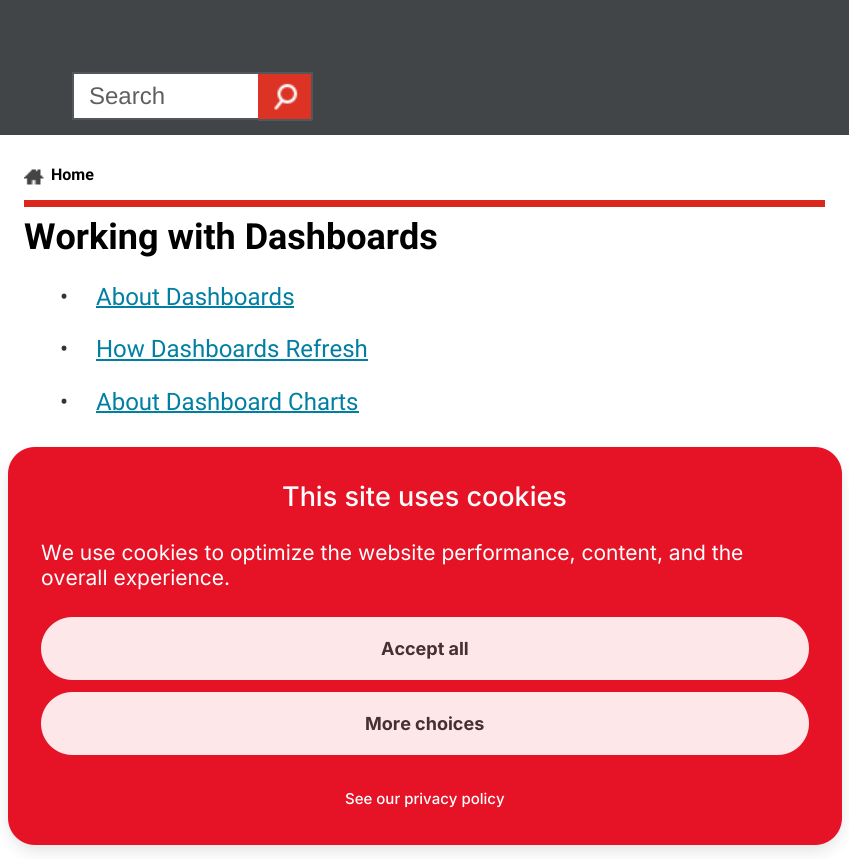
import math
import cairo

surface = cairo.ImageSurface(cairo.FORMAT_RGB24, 849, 859)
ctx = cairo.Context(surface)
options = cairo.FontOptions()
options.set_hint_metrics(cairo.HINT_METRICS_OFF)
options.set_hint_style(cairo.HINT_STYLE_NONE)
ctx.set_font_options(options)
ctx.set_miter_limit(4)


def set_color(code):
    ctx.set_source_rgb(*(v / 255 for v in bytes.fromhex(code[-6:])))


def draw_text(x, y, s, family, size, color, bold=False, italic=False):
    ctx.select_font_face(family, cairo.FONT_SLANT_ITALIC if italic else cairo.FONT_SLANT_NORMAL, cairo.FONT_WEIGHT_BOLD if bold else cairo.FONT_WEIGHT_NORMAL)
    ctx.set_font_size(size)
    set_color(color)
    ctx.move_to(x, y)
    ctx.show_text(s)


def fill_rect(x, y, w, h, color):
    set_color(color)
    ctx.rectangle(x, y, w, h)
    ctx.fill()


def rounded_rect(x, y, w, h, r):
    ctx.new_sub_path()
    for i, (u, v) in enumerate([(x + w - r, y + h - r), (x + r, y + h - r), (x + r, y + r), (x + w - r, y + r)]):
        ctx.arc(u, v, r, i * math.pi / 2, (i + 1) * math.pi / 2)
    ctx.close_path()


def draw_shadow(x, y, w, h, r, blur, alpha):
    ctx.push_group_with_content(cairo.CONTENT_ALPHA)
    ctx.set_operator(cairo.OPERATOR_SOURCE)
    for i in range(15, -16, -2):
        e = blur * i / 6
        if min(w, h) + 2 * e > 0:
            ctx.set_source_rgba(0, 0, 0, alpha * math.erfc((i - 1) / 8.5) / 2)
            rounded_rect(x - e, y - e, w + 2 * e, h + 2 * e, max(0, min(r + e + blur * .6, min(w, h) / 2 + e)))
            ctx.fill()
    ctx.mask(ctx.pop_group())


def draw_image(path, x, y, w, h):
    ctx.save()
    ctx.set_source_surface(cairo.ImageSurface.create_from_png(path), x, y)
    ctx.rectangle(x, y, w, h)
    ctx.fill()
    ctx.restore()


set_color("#ffffff")
ctx.paint()
fill_rect(0, 0, 849, 135, "#424547")
fill_rect(74, 74, 184, 44, "#ffffff")
ctx.rectangle(73, 73, 238, 46)
set_color("#53565a")
ctx.stroke()
draw_text(89, 104, "Search", "Liberation Sans", 24, "#5f5f5f")
fill_rect(258, 74, 53, 45, "#dc3325")
draw_image("assets/img1.png", 274, 83, 24, 27)
fill_rect(312, 72, 1, 48, "#53565a")
fill_rect(258, 120, 54, 1, "#53565a")
fill_rect(24, 200, 801, 7, "#da291c")
draw_image("assets/img2.png", 24, 169, 20, 16)
draw_text(51, 180, "Home", "Roboto", 16, "#000000", bold=True)
draw_text(24, 249, "Working with Dashboards", "Roboto", 36, "#000000", bold=True)
draw_text(60, 305, "•", "Roboto", 24, "#333333")
draw_text(96, 305, "About Dashboards", "Roboto", 24, "#007fa3")
fill_rect(96, 306, 198, 2, "#007fa3")
draw_text(60, 357, "•", "Roboto", 24, "#333333")
draw_text(96, 357, "How Dashboards Refresh", "Roboto", 24, "#007fa3")
fill_rect(96, 359, 272, 2, "#007fa3")
draw_text(60, 410, "•", "Roboto", 24, "#333333")
draw_text(96, 410, "About Dashboard Charts", "Roboto", 24, "#007fa3")
fill_rect(96, 411, 263, 2, "#007fa3")
set_color("#000000")
draw_shadow(8, 455, 834, 397, 27, 7.5, 0.1)
set_color("#e61226")
rounded_rect(9, 448, 832, 396, 26)
ctx.fill_preserve()
ctx.stroke()
draw_text(282, 506, "This site uses cookies", "Inter Medium", 27, "#ffffff")
draw_text(41, 560, "We use cookies to optimize the website performance, content, and the", "Inter", 21, "#ffffff")
draw_text(41, 585, "overall experience.", "Inter", 21, "#ffffff")
set_color("#fde7e9")
rounded_rect(41, 617, 768, 63, 31.5)
ctx.fill()
draw_text(381, 655, "Accept all", "Inter", 18, "#453032", bold=True)
set_color("#fde7e9")
rounded_rect(41, 692, 768, 63, 31.5)
ctx.fill()
draw_text(365, 730, "More choices", "Inter", 18, "#453032", bold=True)
draw_text(345, 804, "See our privacy policy", "Inter Medium", 15, "#ffffff")
surface.write_to_png("output.png")
